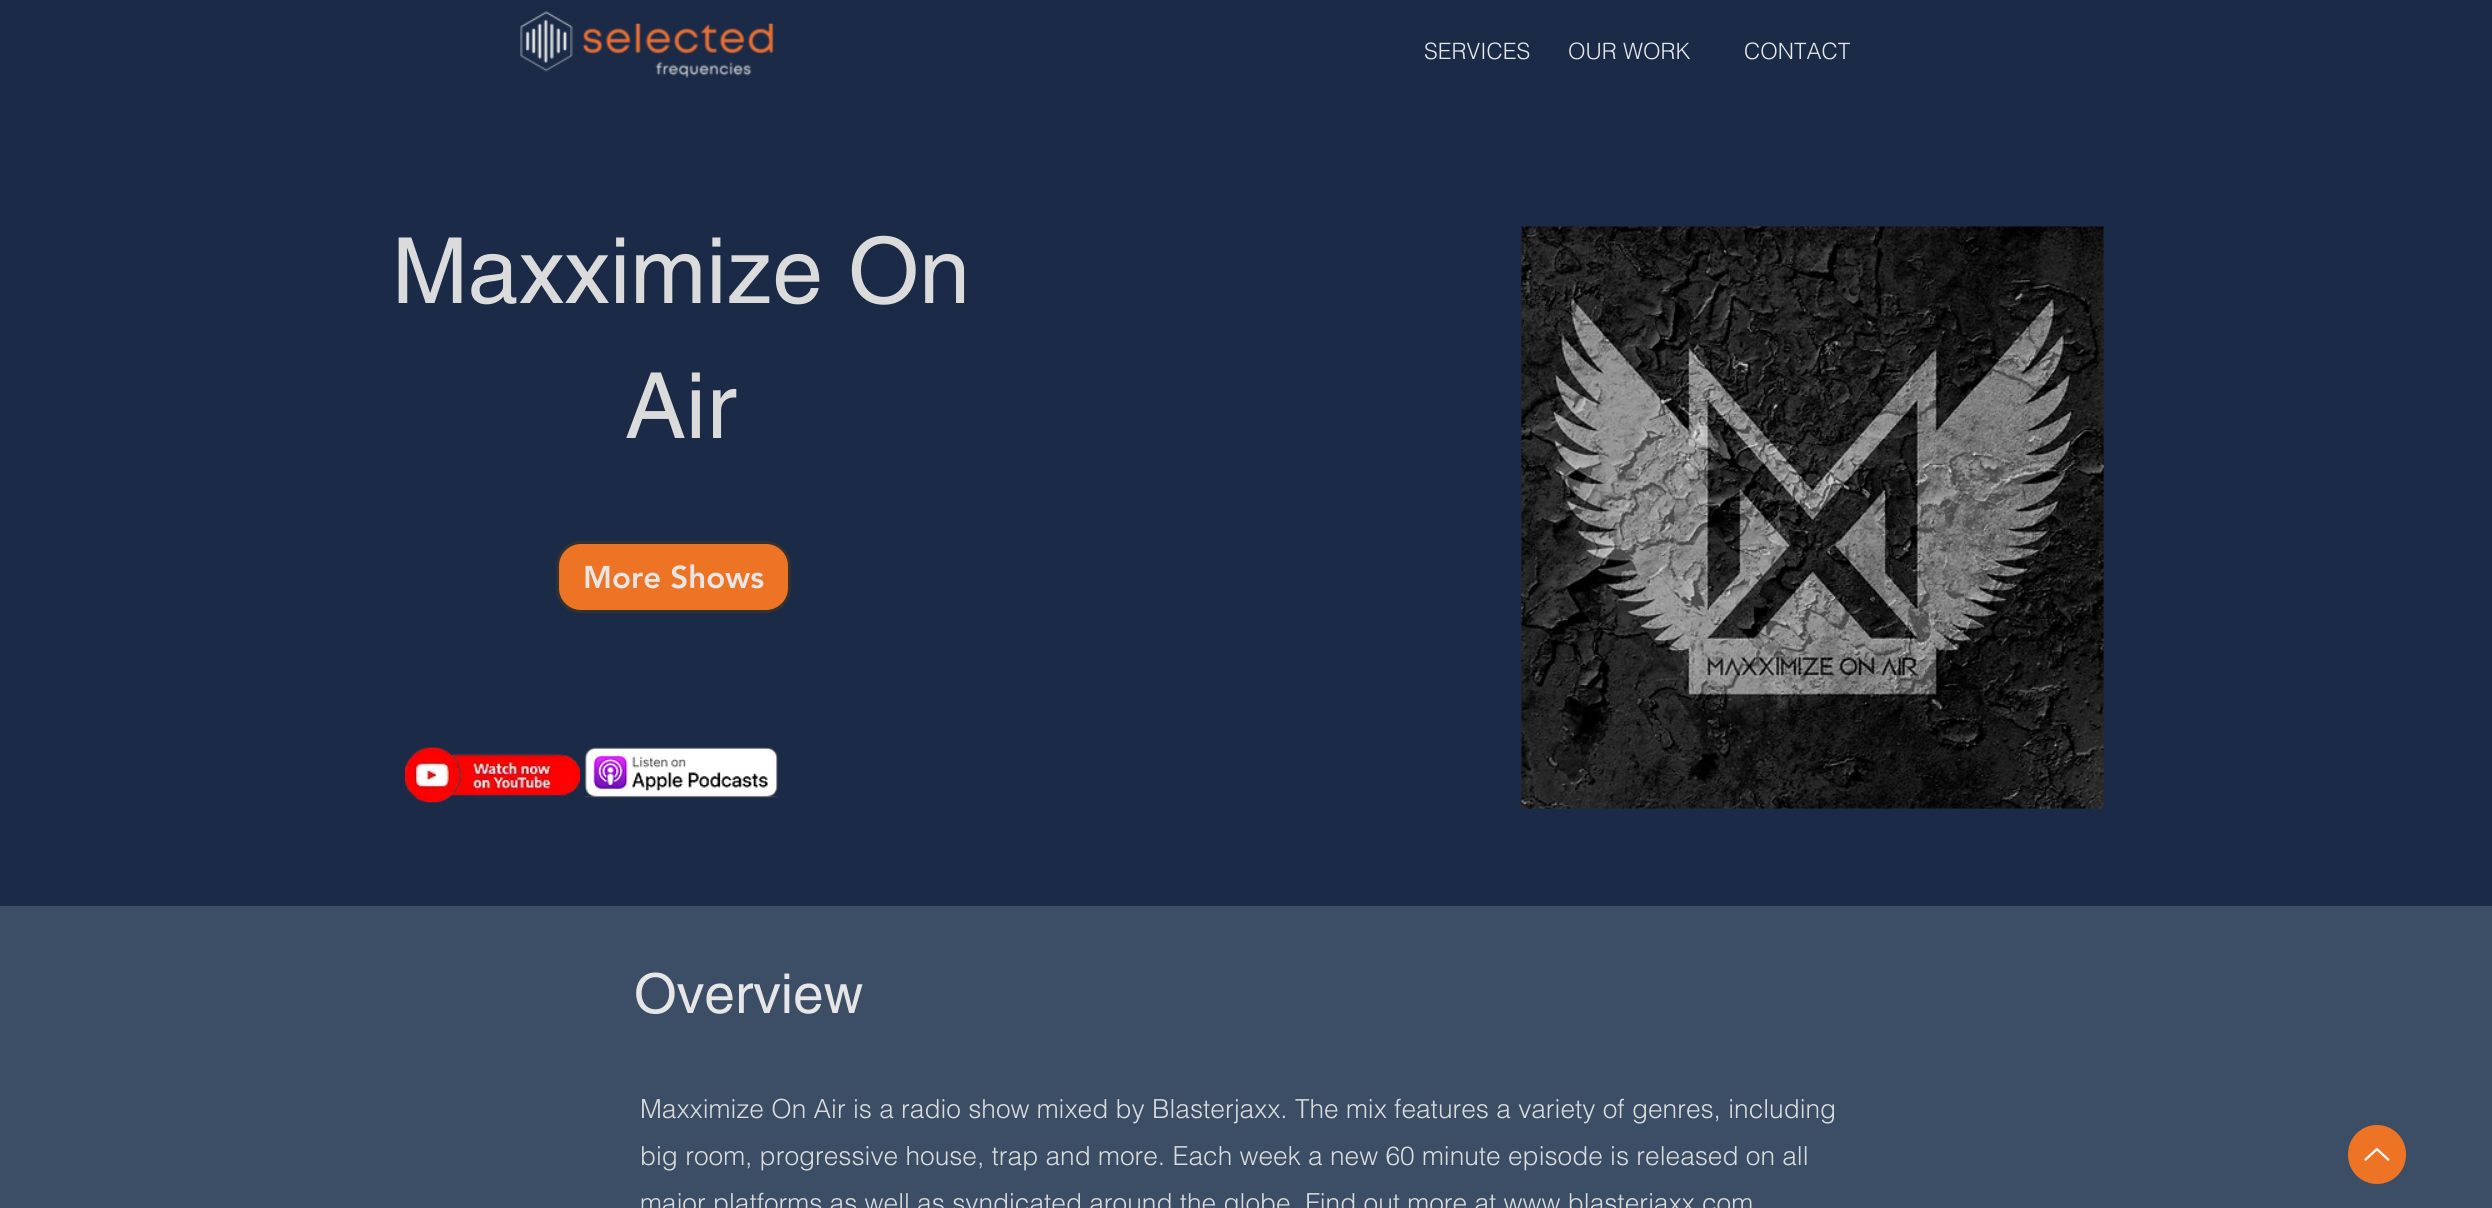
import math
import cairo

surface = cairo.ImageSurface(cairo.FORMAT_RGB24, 2492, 1208)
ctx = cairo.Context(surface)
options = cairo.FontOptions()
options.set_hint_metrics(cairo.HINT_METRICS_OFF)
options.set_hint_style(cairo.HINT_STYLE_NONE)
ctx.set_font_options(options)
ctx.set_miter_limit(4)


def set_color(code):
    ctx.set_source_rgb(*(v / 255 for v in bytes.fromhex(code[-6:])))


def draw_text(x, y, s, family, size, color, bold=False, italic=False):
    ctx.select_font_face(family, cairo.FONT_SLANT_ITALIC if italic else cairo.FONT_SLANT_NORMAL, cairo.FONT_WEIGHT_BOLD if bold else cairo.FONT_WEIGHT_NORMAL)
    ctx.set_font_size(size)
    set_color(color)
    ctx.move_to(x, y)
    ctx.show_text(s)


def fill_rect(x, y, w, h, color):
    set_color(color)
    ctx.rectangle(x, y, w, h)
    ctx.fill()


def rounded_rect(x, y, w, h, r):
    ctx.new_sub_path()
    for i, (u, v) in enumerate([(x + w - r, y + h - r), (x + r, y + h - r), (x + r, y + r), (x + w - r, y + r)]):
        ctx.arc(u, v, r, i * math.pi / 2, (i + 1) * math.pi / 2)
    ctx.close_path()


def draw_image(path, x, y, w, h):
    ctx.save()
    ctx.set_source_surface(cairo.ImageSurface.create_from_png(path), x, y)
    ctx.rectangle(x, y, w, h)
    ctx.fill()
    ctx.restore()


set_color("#1b2b47")
ctx.paint()
draw_image("assets/img1.png", 520, 11, 53, 61)
draw_image("assets/img2.png", 582, 23, 192, 55)
draw_text(1424, 59, "SERVICES", "helvetica Light", 22.5, "#e6e6e6")
draw_text(1568, 59, "OUR WORK", "helvetica Light", 22.5, "#e6e6e6")
draw_text(1744, 59, "CONTACT", "helvetica Light", 22.5, "#e6e6e6")
draw_text(392, 303, "Maxximize On", "helvetica", 91.25, "#dbdbdb")
draw_text(625, 438, "Air", "helvetica", 91.25, "#dbdbdb")
set_color("#ed7325")
rounded_rect(557.5, 542.5, 232, 69, 23.5)
ctx.fill_preserve()
set_color("#323232")
ctx.set_line_width(3)
ctx.stroke()
draw_text(583, 588, "More Shows", "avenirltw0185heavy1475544 Black", 31.25, "#e6e6e6")
draw_image("assets/img3.png", 405, 747, 175, 56)
draw_image("assets/img4.png", 585, 747, 193, 51)
draw_image("assets/img5.png", 1521, 226, 583, 583)
fill_rect(0, 906, 2492, 302, "#3b4e66")
draw_text(634, 1013, "Overview", "helvetica", 55, "#e6e6e6")
draw_text(640, 1118, "Maxximize On Air is a radio show mixed by Blasterjaxx. The mix features a variety of genres, including", "helvetica Light", 26.25, "#dbdbdb")
draw_text(640, 1165, "big room, progressive house, trap and more. Each week a new 60 minute episode is released on all", "helvetica Light", 26.25, "#dbdbdb")
draw_text(640, 1212, "major platforms as well as syndicated around the globe. Find out more at www.blasterjaxx.com", "helvetica Light", 26.25, "#dbdbdb")
set_color("#ed7325")
rounded_rect(2348, 1125, 58, 59, 29)
ctx.fill()
draw_image("assets/img6.png", 2364, 1148, 26, 13)
surface.write_to_png("output.png")
